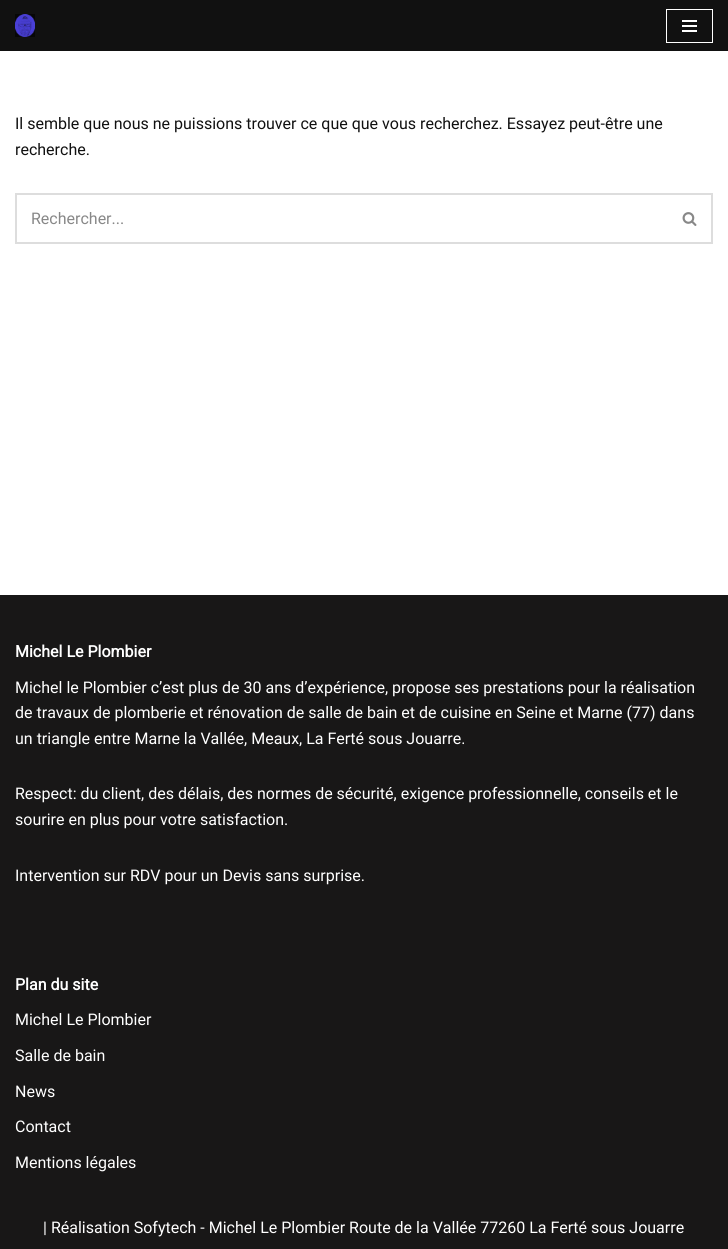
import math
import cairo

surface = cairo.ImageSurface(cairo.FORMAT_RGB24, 728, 1249)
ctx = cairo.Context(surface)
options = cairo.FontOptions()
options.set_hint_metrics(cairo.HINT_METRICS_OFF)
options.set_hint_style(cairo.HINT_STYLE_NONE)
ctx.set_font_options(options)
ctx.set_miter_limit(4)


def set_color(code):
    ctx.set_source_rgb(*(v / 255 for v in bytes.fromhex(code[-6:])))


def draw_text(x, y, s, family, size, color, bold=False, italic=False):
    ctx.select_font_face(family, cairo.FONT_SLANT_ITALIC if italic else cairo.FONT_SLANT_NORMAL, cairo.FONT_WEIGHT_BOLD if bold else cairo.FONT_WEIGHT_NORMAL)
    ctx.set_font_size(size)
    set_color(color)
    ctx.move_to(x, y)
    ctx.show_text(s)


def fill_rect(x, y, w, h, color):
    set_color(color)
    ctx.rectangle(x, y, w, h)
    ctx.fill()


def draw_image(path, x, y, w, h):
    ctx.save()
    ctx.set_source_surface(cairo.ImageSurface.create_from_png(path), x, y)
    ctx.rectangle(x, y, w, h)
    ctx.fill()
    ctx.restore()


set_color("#ffffff")
ctx.paint()
fill_rect(0, 0, 728, 51, "#111111")
draw_image("assets/img1.png", 15, 14, 20, 23)
ctx.rectangle(666.5, 9.5, 46, 33)
set_color("#ffffff")
ctx.set_line_width(1)
ctx.stroke()
fill_rect(682, 20, 15, 2, "#ffffff")
fill_rect(682, 25, 15, 2, "#ffffff")
fill_rect(682, 30, 15, 2, "#ffffff")
draw_text(15, 129, "Il semble que nous ne puissions trouver ce que que vous recherchez. Essayez peut-être une", "Roboto", 16, "#111111")
draw_text(15, 155, "recherche.", "Roboto", 16, "#111111")
fill_rect(15, 193, 698, 2, "#dddddd")
fill_rect(15, 242, 653, 2, "#dddddd")
fill_rect(15, 193, 2, 51, "#dddddd")
draw_text(31, 224, "Rechercher...", "Roboto", 16, "#888888")
fill_rect(711, 193, 2, 51, "#dddddd")
fill_rect(668, 242, 45, 2, "#dddddd")
draw_image("assets/img2.png", 682, 212, 15, 14)
fill_rect(0, 595, 728, 654, "#181717")
draw_text(15, 657, "Michel Le Plombier", "Roboto", 16, "#ffffff", bold=True)
draw_text(15, 693, "Michel le Plombier c’est plus de 30 ans d’expérience, propose ses prestations pour la réalisation", "Roboto", 16, "#ffffff")
draw_text(15, 718, "de travaux de plomberie et rénovation de salle de bain et de cuisine en Seine et Marne (77) dans", "Roboto", 16, "#ffffff")
draw_text(15, 744, "un triangle entre Marne la Vallée, Meaux, La Ferté sous Jouarre.", "Roboto", 16, "#ffffff")
draw_text(15, 799, "Respect: du client, des délais, des normes de sécurité, exigence professionnelle, conseils et le", "Roboto", 16, "#ffffff")
draw_text(15, 825, "sourire en plus pour votre satisfaction.", "Roboto", 16, "#ffffff")
draw_text(15, 881, "Intervention sur RDV pour un Devis sans surprise.", "Roboto", 16, "#ffffff")
draw_text(15, 990, "Plan du site", "Roboto", 16, "#ffffff", bold=True)
draw_text(15, 1025, "Michel Le Plombier", "Roboto", 16, "#ffffff")
draw_text(15, 1061, "Salle de bain", "Roboto", 16, "#ffffff")
draw_text(15, 1097, "News", "Roboto", 16, "#ffffff")
draw_text(15, 1132, "Contact", "Roboto", 16, "#ffffff")
draw_text(15, 1168, "Mentions légales", "Roboto", 16, "#ffffff")
draw_text(43, 1233, "| Réalisation Sofytech - Michel Le Plombier Route de la Vallée 77260 La Ferté sous Jouarre", "Roboto", 16, "#ffffff")
surface.write_to_png("output.png")
